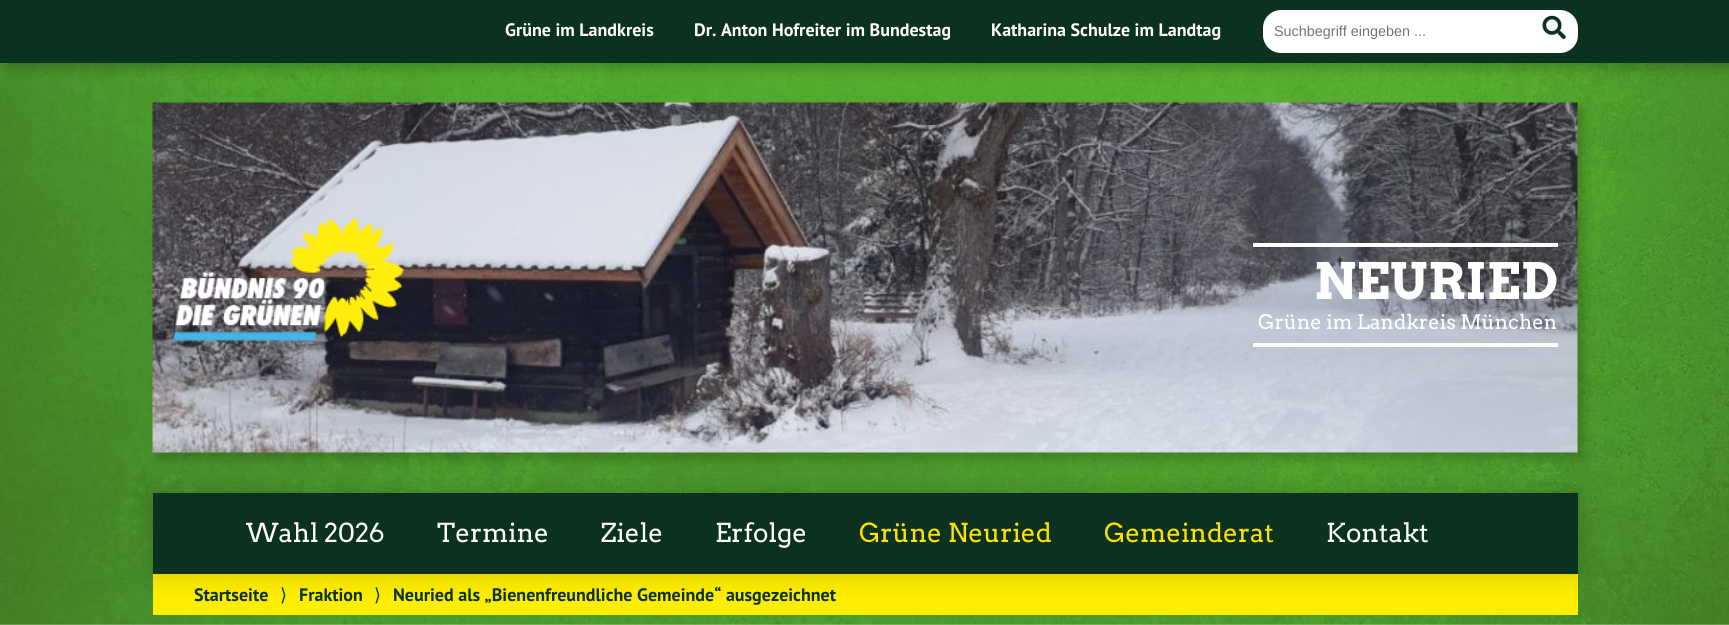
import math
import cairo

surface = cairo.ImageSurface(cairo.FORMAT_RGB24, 1729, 625)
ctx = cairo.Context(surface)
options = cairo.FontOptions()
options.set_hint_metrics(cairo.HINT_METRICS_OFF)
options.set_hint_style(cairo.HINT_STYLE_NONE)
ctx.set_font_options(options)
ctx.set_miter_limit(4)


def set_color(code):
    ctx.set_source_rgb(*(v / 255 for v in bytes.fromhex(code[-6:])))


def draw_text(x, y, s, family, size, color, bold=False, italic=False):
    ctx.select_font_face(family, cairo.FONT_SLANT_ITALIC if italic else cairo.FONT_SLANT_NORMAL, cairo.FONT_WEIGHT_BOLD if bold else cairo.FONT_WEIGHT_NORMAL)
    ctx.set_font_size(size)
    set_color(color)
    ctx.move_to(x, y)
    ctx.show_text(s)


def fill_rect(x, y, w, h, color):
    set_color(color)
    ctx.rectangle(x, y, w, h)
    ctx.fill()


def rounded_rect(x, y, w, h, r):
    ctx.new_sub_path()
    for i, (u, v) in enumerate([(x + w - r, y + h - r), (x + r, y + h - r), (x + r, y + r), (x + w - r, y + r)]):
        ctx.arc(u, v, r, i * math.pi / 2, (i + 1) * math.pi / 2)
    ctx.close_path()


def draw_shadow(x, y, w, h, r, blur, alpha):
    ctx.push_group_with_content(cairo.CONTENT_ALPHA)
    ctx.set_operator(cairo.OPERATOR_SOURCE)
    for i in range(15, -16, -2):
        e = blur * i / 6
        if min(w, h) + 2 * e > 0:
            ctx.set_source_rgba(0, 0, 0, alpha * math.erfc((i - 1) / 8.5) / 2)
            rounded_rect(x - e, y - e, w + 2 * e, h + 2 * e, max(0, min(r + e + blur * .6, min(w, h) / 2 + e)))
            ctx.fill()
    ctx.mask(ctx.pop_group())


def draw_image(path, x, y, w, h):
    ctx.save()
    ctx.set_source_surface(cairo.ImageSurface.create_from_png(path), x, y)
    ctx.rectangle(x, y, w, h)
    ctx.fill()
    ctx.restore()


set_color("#ffffff")
ctx.paint()
draw_image("assets/img1.png", 0, 63, 1729, 562)
set_color("#000000")
draw_shadow(6, 6, 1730, 63, 0, 6, 0.2)
fill_rect(0, 0, 1729, 63, "#0a321e")
draw_text(505, 36, "Grüne im Landkreis", "PT Sans", 18, "#ffffff", bold=True)
draw_text(694, 36, "Dr. Anton Hofreiter im Bundestag", "PT Sans", 18, "#ffffff", bold=True)
draw_text(991, 36, "Katharina Schulze im Landtag", "PT Sans", 18, "#ffffff", bold=True)
rounded_rect(1263, 10, 315, 43, 18)
ctx.fill()
draw_text(1274, 36, "Suchbegriff eingeben ...", "Liberation Sans", 14.4, "#757575")
draw_image("assets/img2.png", 1542, 15, 24, 25)
set_color("#000000")
draw_shadow(159, 109, 1425, 350, 0, 6, 0.2)
draw_image("assets/img3.png", 152, 102, 1426, 351)
draw_image("assets/img4.png", 172, 217, 232, 125)
fill_rect(1253, 243, 305, 4, "#ffffff")
fill_rect(1253, 343, 305, 4, "#ffffff")
draw_text(1314, 299, "NEURIED", "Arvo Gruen", 50, "#ffffff")
draw_text(1258, 329, "Grüne im Landkreis München", "Arvo", 20, "#ffffff")
fill_rect(153, 574, 1425, 41, "#ffee00")
set_color("#000000")
draw_shadow(153, 493, 1425, 81, 0, 12.5, 0.2)
fill_rect(153, 493, 1425, 81, "#0a321e")
draw_text(246, 542, "Wahl 2026", "Arvo", 26, "#ffffff")
draw_text(437, 542, "Termine", "Arvo", 26, "#ffffff")
draw_text(601, 542, "Ziele", "Arvo", 26, "#ffffff")
draw_text(715, 542, "Erfolge", "Arvo", 26, "#ffffff")
draw_text(859, 542, "Grüne Neuried", "Arvo", 26, "#ffe000")
draw_text(1104, 542, "Gemeinderat", "Arvo", 26, "#ffe000")
draw_text(1326, 542, "Kontakt", "Arvo", 26, "#ffffff")
draw_text(194, 601, "Startseite", "PT Sans", 18, "#0a321e", bold=True)
draw_text(280, 601, "⟩", "DejaVu Sans", 18, "#0a321e")
draw_text(299, 601, "Fraktion", "PT Sans", 18, "#0a321e", bold=True)
draw_text(374, 601, "⟩", "DejaVu Sans", 18, "#0a321e")
draw_text(393, 601, "Neuried als „Bienenfreundliche Gemeinde“ ausgezeichnet", "PT Sans", 18, "#0a321e", bold=True)
surface.write_to_png("output.png")
